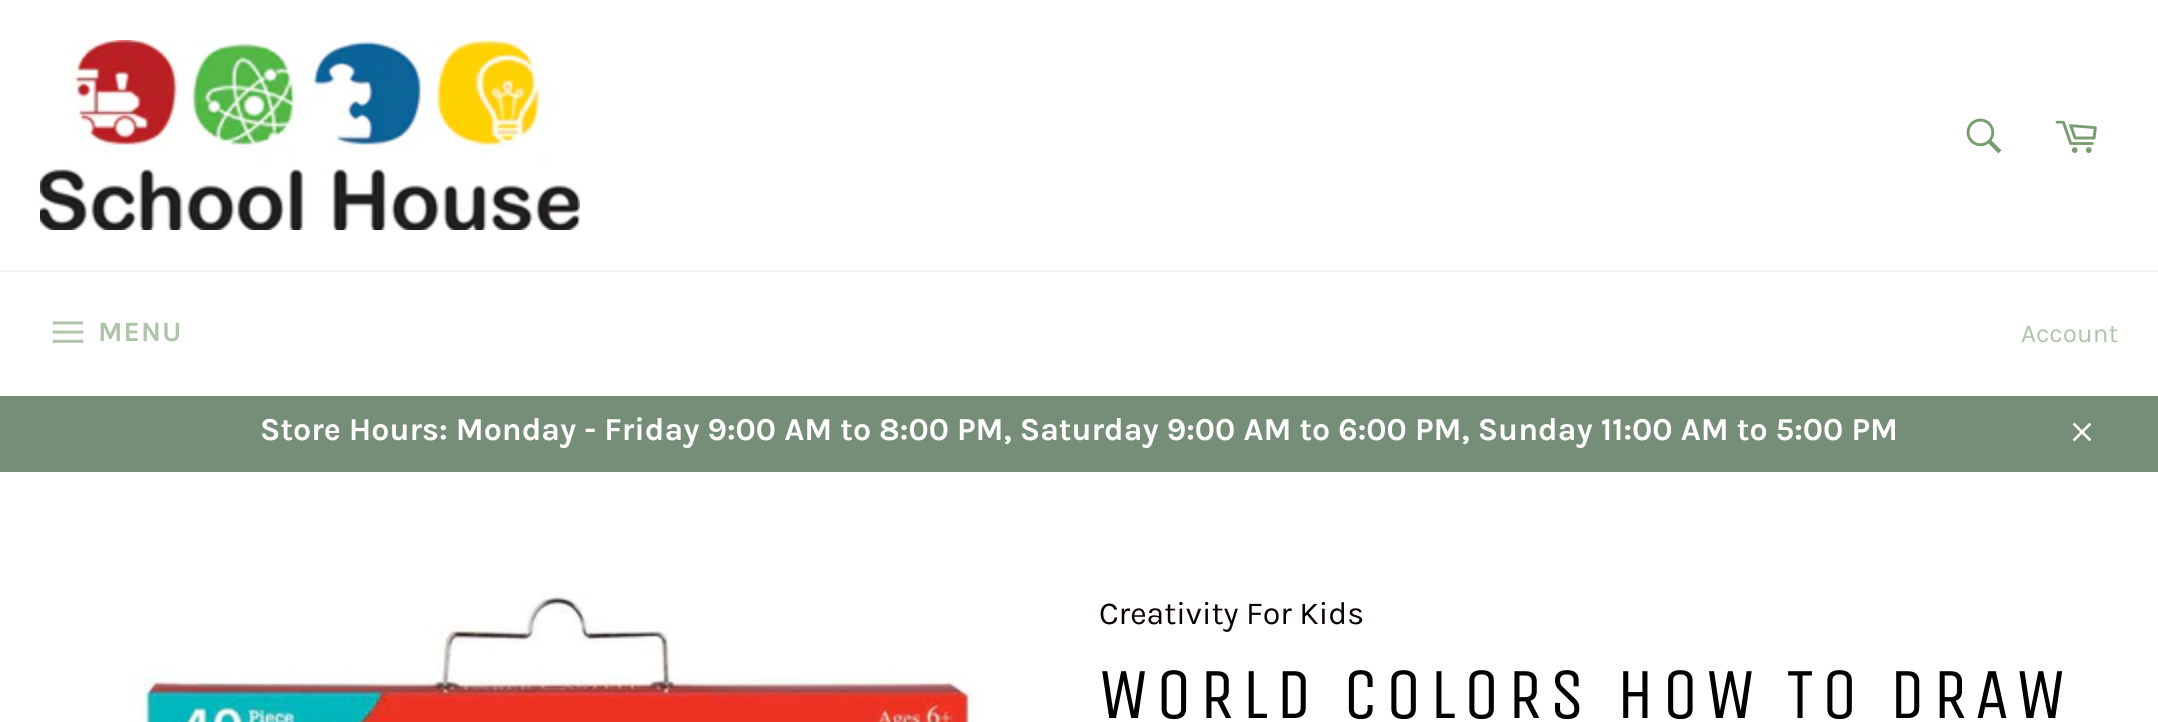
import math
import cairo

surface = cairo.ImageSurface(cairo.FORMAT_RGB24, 2158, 722)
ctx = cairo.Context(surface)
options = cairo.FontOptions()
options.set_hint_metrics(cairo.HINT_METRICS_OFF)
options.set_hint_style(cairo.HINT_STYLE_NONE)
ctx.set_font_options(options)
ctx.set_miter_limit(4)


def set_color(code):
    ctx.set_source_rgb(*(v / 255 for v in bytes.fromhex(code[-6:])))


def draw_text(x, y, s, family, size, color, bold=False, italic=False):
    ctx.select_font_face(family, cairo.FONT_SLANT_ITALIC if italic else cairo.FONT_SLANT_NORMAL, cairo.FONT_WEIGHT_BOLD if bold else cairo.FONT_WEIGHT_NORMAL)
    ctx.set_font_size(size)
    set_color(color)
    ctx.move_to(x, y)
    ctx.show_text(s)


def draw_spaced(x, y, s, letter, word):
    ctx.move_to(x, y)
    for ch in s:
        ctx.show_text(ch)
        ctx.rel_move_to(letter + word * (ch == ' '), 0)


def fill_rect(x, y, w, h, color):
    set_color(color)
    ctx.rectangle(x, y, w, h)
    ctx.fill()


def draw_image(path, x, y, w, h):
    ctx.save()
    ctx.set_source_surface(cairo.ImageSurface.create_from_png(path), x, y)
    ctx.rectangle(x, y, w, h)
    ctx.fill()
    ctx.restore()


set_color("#ffffff")
ctx.paint()
draw_image("assets/img1.png", 40, 40, 540, 190)
draw_image("assets/img2.png", 1966, 118, 36, 36)
draw_image("assets/img3.png", 2055, 120, 42, 33)
fill_rect(0, 270, 2158, 2, "#f2f2f2")
draw_image("assets/img4.png", 52, 321, 32, 22)
ctx.select_font_face("Karla", cairo.FONT_SLANT_NORMAL, cairo.FONT_WEIGHT_BOLD)
ctx.set_font_size(28)
set_color("#afc4aa")
draw_spaced(98, 341, "MENU", 1, 0)
draw_text(2021, 342, "Account", "Karla", 26, "#afc4aa")
fill_rect(0, 396, 2158, 76, "#768e77")
draw_text(260, 440, "Store Hours: Monday - Friday 9:00 AM to 8:00 PM, Saturday 9:00 AM to 6:00 PM, Sunday 11:00 AM to 5:00 PM", "Karla", 32, "#ffffff", bold=True)
draw_image("assets/img5.png", 2072, 422, 20, 20)
draw_image("assets/img6.png", 134, 592, 843, 130)
draw_text(1099, 624, "Creativity For Kids", "Karla", 32, "#090000")
ctx.select_font_face("Unica One")
ctx.set_font_size(72)
set_color("#000000")
draw_spaced(1099, 718, "WORLD COLORS HOW TO DRAW", 7.2, 0)
surface.write_to_png("output.png")
